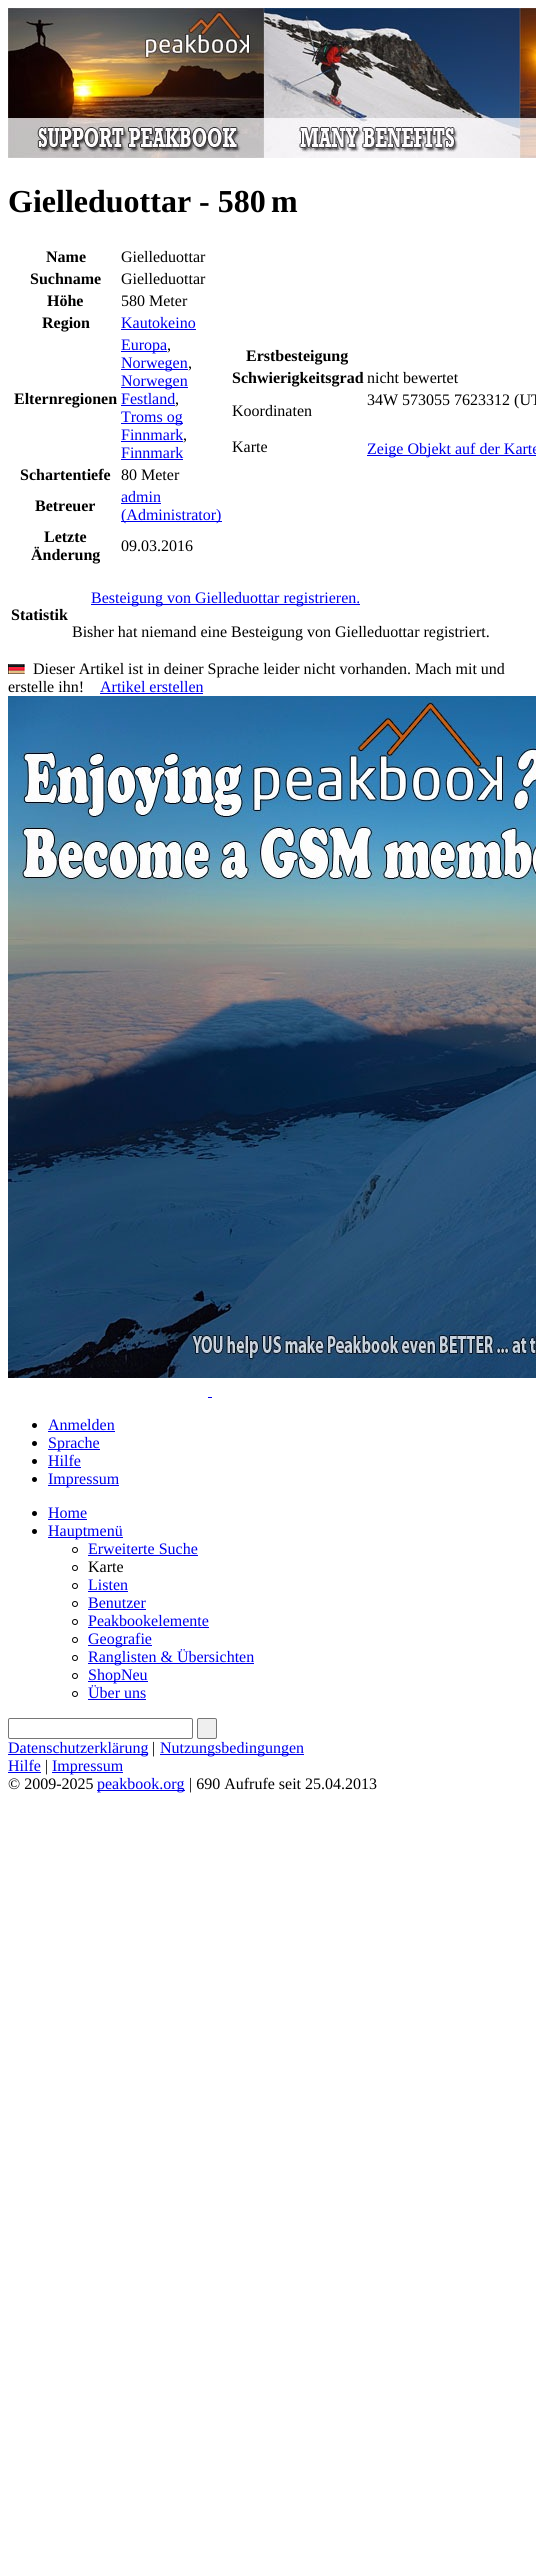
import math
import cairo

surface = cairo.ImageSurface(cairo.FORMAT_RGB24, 536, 2565)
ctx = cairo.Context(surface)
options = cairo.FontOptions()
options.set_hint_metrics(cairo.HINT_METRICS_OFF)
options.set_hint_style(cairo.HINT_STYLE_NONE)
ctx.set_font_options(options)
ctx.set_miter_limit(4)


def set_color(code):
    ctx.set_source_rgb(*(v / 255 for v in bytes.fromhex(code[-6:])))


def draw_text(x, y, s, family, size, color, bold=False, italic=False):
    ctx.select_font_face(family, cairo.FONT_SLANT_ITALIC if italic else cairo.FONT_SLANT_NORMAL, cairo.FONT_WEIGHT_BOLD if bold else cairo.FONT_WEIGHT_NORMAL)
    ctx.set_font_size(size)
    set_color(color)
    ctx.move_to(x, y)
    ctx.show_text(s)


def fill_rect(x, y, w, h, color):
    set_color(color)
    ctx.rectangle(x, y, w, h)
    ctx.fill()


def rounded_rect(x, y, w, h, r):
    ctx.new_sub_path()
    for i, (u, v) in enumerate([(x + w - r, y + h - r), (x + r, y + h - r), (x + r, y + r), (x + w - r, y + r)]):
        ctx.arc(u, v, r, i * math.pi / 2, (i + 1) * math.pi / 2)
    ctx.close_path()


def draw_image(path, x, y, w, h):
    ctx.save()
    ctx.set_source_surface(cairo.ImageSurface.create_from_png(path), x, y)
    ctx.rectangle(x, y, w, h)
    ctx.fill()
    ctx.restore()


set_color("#ffffff")
ctx.paint()
draw_image("assets/img1.png", 8, 8, 528, 150)
draw_text(8, 212, "Gielleduottar - 580", "Liberation Serif", 32, "#000000", bold=True)
draw_text(271, 212, "m", "Liberation Serif", 32, "#000000", bold=True)
draw_text(46, 262, "Name", "Liberation Serif", 16, "#000000", bold=True)
draw_text(121, 262, "Gielleduottar", "Liberation Serif", 16, "#000000")
draw_text(30, 284, "Suchname", "Liberation Serif", 16, "#000000", bold=True)
draw_text(121, 284, "Gielleduottar", "Liberation Serif", 16, "#000000")
draw_text(47, 306, "Höhe", "Liberation Serif", 16, "#000000", bold=True)
draw_text(121, 306, "580 Meter", "Liberation Serif", 16, "#000000")
draw_text(42, 328, "Region", "Liberation Serif", 16, "#000000", bold=True)
draw_text(121, 328, "Kautokeino", "Liberation Serif", 16, "#0000ee")
fill_rect(121, 329, 75, 1, "#0000ee")
draw_text(14, 404, "Elternregionen", "Liberation Serif", 16, "#000000", bold=True)
fill_rect(121, 351, 46, 1, "#0000ee")
draw_text(121, 350, "Europa", "Liberation Serif", 16, "#0000ee")
draw_text(167, 350, ",", "Liberation Serif", 16, "#000000")
fill_rect(121, 369, 67, 1, "#0000ee")
draw_text(121, 368, "Norwegen", "Liberation Serif", 16, "#0000ee")
draw_text(188, 368, ",", "Liberation Serif", 16, "#000000")
fill_rect(121, 387, 67, 1, "#0000ee")
draw_text(121, 386, "Norwegen", "Liberation Serif", 16, "#0000ee")
draw_text(121, 404, "Festland", "Liberation Serif", 16, "#0000ee")
fill_rect(121, 405, 54, 1, "#0000ee")
draw_text(175, 404, ",", "Liberation Serif", 16, "#000000")
fill_rect(121, 423, 62, 1, "#0000ee")
draw_text(121, 422, "Troms og", "Liberation Serif", 16, "#0000ee")
draw_text(121, 440, "Finnmark", "Liberation Serif", 16, "#0000ee")
fill_rect(121, 441, 62, 1, "#0000ee")
draw_text(183, 440, ",", "Liberation Serif", 16, "#000000")
draw_text(121, 458, "Finnmark", "Liberation Serif", 16, "#0000ee")
fill_rect(121, 459, 62, 1, "#0000ee")
draw_text(20, 480, "Schartentiefe", "Liberation Serif", 16, "#000000", bold=True)
draw_text(121, 480, "80 Meter", "Liberation Serif", 16, "#000000")
draw_text(35, 511, "Betreuer", "Liberation Serif", 16, "#000000", bold=True)
draw_text(121, 502, "admin", "Liberation Serif", 16, "#0000ee")
fill_rect(121, 503, 40, 1, "#0000ee")
fill_rect(121, 521, 101, 1, "#0000ee")
draw_text(121, 520, "(Administrator)", "Liberation Serif", 16, "#0000ee")
draw_text(44, 542, "Letzte", "Liberation Serif", 16, "#000000", bold=True)
draw_text(31, 560, "Änderung", "Liberation Serif", 16, "#000000", bold=True)
draw_text(121, 551, "09.03.2016", "Liberation Serif", 16, "#000000")
draw_text(246, 361, "Erstbesteigung", "Liberation Serif", 16, "#000000", bold=True)
draw_text(232, 383, "Schwierigkeitsgrad", "Liberation Serif", 16, "#000000", bold=True)
draw_text(367, 383, "nicht bewertet", "Liberation Serif", 16, "#000000")
draw_text(367, 405, "34W 573055 7623312 (UT", "Liberation Serif", 16, "#000000")
draw_text(232, 416, "Koordinaten", "Liberation Serif", 16, "#000000")
draw_text(232, 452, "Karte", "Liberation Serif", 16, "#000000")
fill_rect(367, 455, 169, 1, "#0000ee")
draw_text(367, 454, "Zeige Objekt auf der Karte", "Liberation Serif", 16, "#0000ee")
draw_text(11, 620, "Statistik", "Liberation Serif", 16, "#000000", bold=True)
fill_rect(91, 604, 269, 1, "#0000ee")
draw_text(91, 603, "Besteigung von Gielleduottar registrieren.", "Liberation Serif", 16, "#0000ee")
draw_text(72, 637, "Bisher hat niemand eine Besteigung von Gielleduottar registriert.", "Liberation Serif", 16, "#000000")
draw_image("assets/img2.png", 8, 664, 17, 10)
draw_text(33, 674, "Dieser Artikel ist in deiner Sprache leider nicht vorhanden. Mach mit und", "Liberation Serif", 16, "#000000")
draw_text(8, 692, "erstelle ihn!", "Liberation Serif", 16, "#000000")
draw_text(100, 692, "Artikel erstellen", "Liberation Serif", 16, "#0000ee")
fill_rect(100, 693, 103, 1, "#0000ee")
draw_image("assets/img3.png", 8, 696, 528, 682)
fill_rect(208, 1397, 4, 1, "#0000ee")
set_color("#000000")
ctx.arc(34.5, 1425.5, 2.5, 0, 2 * math.pi)
ctx.fill()
draw_text(48, 1430, "Anmelden", "Liberation Serif", 16, "#0000ee")
fill_rect(48, 1431, 67, 1, "#0000ee")
set_color("#000000")
ctx.new_path()
ctx.arc(34.5, 1443.5, 2.5, 0, 2 * math.pi)
ctx.fill()
fill_rect(48, 1449, 52, 1, "#0000ee")
draw_text(48, 1448, "Sprache", "Liberation Serif", 16, "#0000ee")
set_color("#000000")
ctx.new_path()
ctx.arc(34.5, 1461.5, 2.5, 0, 2 * math.pi)
ctx.fill()
draw_text(48, 1466, "Hilfe", "Liberation Serif", 16, "#0000ee")
fill_rect(48, 1467, 33, 1, "#0000ee")
set_color("#000000")
ctx.new_path()
ctx.arc(34.5, 1479.5, 2.5, 0, 2 * math.pi)
ctx.fill()
fill_rect(48, 1485, 71, 1, "#0000ee")
draw_text(48, 1484, "Impressum", "Liberation Serif", 16, "#0000ee")
set_color("#000000")
ctx.new_path()
ctx.arc(34.5, 1513.5, 2.5, 0, 2 * math.pi)
ctx.fill()
draw_text(48, 1518, "Home", "Liberation Serif", 16, "#0000ee")
fill_rect(48, 1519, 39, 1, "#0000ee")
set_color("#000000")
ctx.new_path()
ctx.arc(34.5, 1531.5, 2.5, 0, 2 * math.pi)
ctx.fill()
fill_rect(48, 1537, 75, 1, "#0000ee")
draw_text(48, 1536, "Hauptmenü", "Liberation Serif", 16, "#0000ee")
ctx.new_path()
ctx.arc(75, 1550, 2.5, 0, 2 * math.pi)
set_color("#000000")
ctx.set_line_width(1)
ctx.stroke()
draw_text(88, 1554, "Erweiterte Suche", "Liberation Serif", 16, "#0000ee")
fill_rect(88, 1555, 110, 1, "#0000ee")
ctx.new_path()
ctx.arc(75, 1568, 2.5, 0, 2 * math.pi)
set_color("#000000")
ctx.stroke()
draw_text(88, 1572, "Karte", "Liberation Serif", 16, "#000000")
ctx.new_path()
ctx.arc(75, 1586, 2.5, 0, 2 * math.pi)
ctx.stroke()
draw_text(88, 1590, "Listen", "Liberation Serif", 16, "#0000ee")
fill_rect(88, 1591, 40, 1, "#0000ee")
ctx.new_path()
ctx.arc(75, 1604, 2.5, 0, 2 * math.pi)
set_color("#000000")
ctx.stroke()
draw_text(88, 1608, "Benutzer", "Liberation Serif", 16, "#0000ee")
fill_rect(88, 1609, 58, 1, "#0000ee")
ctx.new_path()
ctx.arc(75, 1622, 2.5, 0, 2 * math.pi)
set_color("#000000")
ctx.stroke()
draw_text(88, 1626, "Peakbookelemente", "Liberation Serif", 16, "#0000ee")
fill_rect(88, 1627, 121, 1, "#0000ee")
ctx.new_path()
ctx.arc(75, 1640, 2.5, 0, 2 * math.pi)
set_color("#000000")
ctx.stroke()
fill_rect(88, 1645, 64, 1, "#0000ee")
draw_text(88, 1644, "Geografie", "Liberation Serif", 16, "#0000ee")
ctx.new_path()
ctx.arc(75, 1658, 2.5, 0, 2 * math.pi)
set_color("#000000")
ctx.stroke()
fill_rect(88, 1663, 166, 1, "#0000ee")
draw_text(88, 1662, "Ranglisten & Übersichten", "Liberation Serif", 16, "#0000ee")
ctx.new_path()
ctx.arc(75, 1676, 2.5, 0, 2 * math.pi)
set_color("#000000")
ctx.stroke()
fill_rect(88, 1681, 60, 1, "#0000ee")
draw_text(88, 1680, "ShopNeu", "Liberation Serif", 16, "#0000ee")
ctx.new_path()
ctx.arc(75, 1694, 2.5, 0, 2 * math.pi)
set_color("#000000")
ctx.stroke()
draw_text(88, 1698, "Über uns", "Liberation Serif", 16, "#0000ee")
fill_rect(88, 1699, 58, 1, "#0000ee")
rounded_rect(8.5, 1718.5, 184, 20, 1.5)
set_color("#767676")
ctx.stroke()
set_color("#efefef")
rounded_rect(197.5, 1718.5, 19, 20, 1.5)
ctx.fill_preserve()
set_color("#767676")
ctx.stroke()
fill_rect(8, 1754, 140, 1, "#0000ee")
draw_text(8, 1753, "Datenschutzerklärung", "Liberation Serif", 16, "#0000ee")
draw_text(152, 1753, "|", "Liberation Serif", 16, "#000000")
fill_rect(160, 1754, 144, 1, "#0000ee")
draw_text(160, 1753, "Nutzungsbedingungen", "Liberation Serif", 16, "#0000ee")
draw_text(8, 1771, "Hilfe", "Liberation Serif", 16, "#0000ee")
fill_rect(8, 1772, 33, 1, "#0000ee")
draw_text(45, 1771, "|", "Liberation Serif", 16, "#000000")
fill_rect(52, 1772, 71, 1, "#0000ee")
draw_text(52, 1771, "Impressum", "Liberation Serif", 16, "#0000ee")
draw_text(8, 1789, "© 2009-2025", "Liberation Serif", 16, "#000000")
fill_rect(97, 1790, 88, 1, "#0000ee")
draw_text(97, 1789, "peakbook.org", "Liberation Serif", 16, "#0000ee")
draw_text(189, 1789, "| 690 Aufrufe seit 25.04.2013", "Liberation Serif", 16, "#000000")
surface.write_to_png("output.png")
